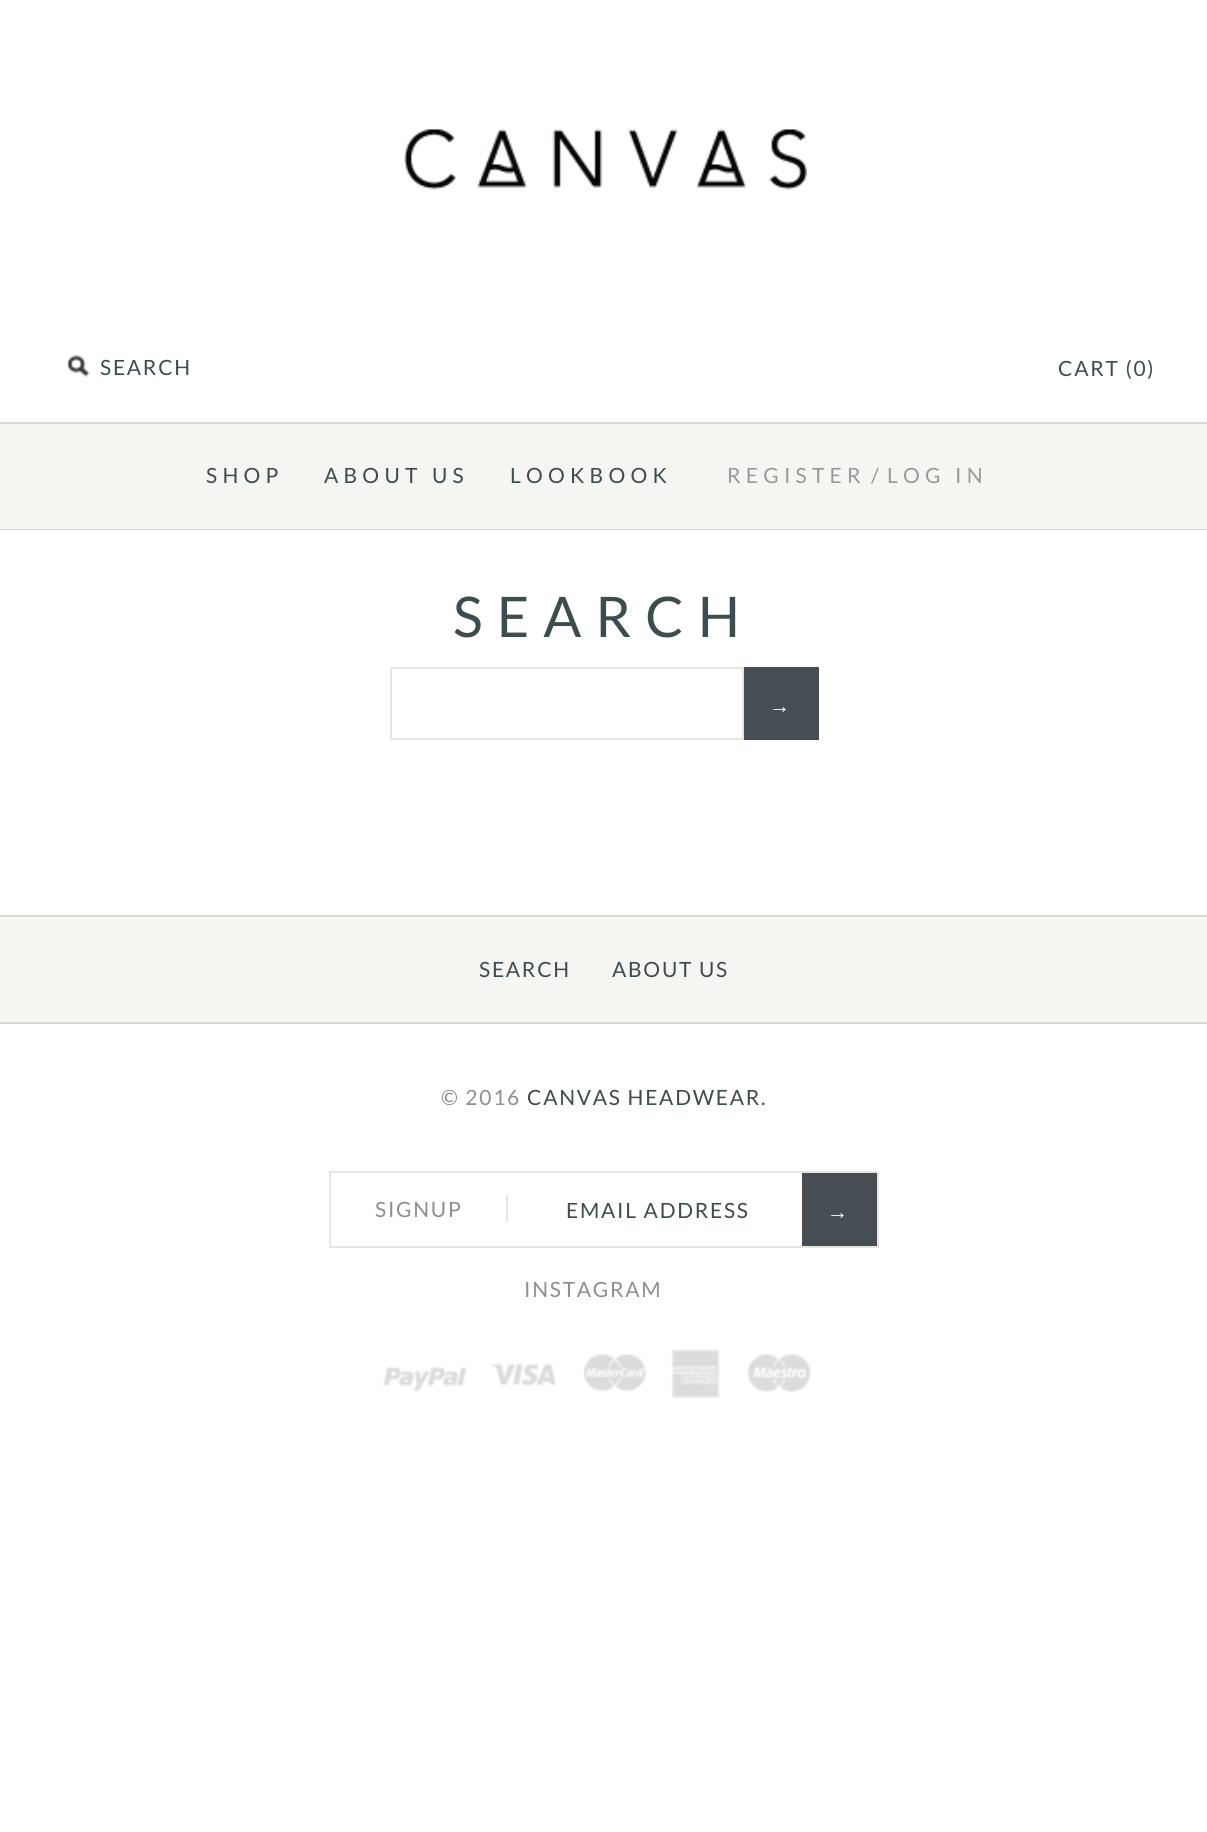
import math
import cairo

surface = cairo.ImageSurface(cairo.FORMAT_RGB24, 1207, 1832)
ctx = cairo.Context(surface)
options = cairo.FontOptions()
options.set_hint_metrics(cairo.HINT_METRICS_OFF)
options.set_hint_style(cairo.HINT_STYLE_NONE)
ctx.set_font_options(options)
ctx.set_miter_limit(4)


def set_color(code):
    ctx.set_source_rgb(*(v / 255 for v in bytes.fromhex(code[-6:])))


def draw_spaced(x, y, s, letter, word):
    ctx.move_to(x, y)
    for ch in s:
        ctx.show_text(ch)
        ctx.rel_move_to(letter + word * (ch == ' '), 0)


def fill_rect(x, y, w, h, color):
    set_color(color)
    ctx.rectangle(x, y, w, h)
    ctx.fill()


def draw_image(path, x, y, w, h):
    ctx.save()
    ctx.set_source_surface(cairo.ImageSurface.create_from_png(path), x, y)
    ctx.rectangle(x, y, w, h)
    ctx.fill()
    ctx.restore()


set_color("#ffffff")
ctx.paint()
draw_image("assets/img1.png", 404, 129, 403, 61)
draw_image("assets/img2.png", 67, 354, 23, 23)
ctx.select_font_face("Lato")
ctx.set_font_size(21)
set_color("#3d4c4f")
draw_spaced(100, 375, "SEARCH", 1.75, 0)
draw_spaced(1058, 376, "CART (0)", 1.75, 0)
fill_rect(0, 529, 1207, 1, "#d9d9d2")
fill_rect(0, 424, 1207, 105, "#f5f5f2")
fill_rect(0, 422, 1207, 2, "#d9d9d4")
set_color("#3d4c4f")
draw_spaced(206, 483, "SHOP", 5.25, 0)
draw_spaced(324, 483, "ABOUT US", 5.25, 0)
draw_spaced(510, 483, "LOOKBOOK", 5.25, 0)
set_color("#999999")
draw_spaced(727, 483, "REGISTER", 5.25, 0)
draw_spaced(871, 483, "/", 1.75, 0)
draw_spaced(887, 483, "LOG IN", 5.25, 0)
ctx.set_font_size(56)
set_color("#3d4c4f")
draw_spaced(453, 637, "SEARCH", 14, 0)
ctx.rectangle(391, 668, 352, 71)
set_color("#e7e7e1")
ctx.stroke()
fill_rect(744, 667, 75, 73, "#464e54")
ctx.select_font_face("Liberation Serif")
ctx.set_font_size(21)
set_color("#ffffff")
draw_spaced(769, 713, "→", 1.75, 0)
fill_rect(0, 917, 1207, 105, "#f5f5f2")
fill_rect(0, 915, 1207, 2, "#d9d9d2")
fill_rect(0, 1022, 1207, 2, "#d9d9d2")
ctx.select_font_face("Lato")
set_color("#3d4c4f")
draw_spaced(479, 977, "SEARCH", 1.75, 0)
draw_spaced(612, 977, "ABOUT US", 1.75, 0)
set_color("#8a8f93")
draw_spaced(441, 1105, "© 2016", 1.75, 0)
set_color("#3d4c4f")
draw_spaced(527, 1105, "CANVAS HEADWEAR.", 1.75, 0)
ctx.rectangle(330, 1172, 548, 75)
set_color("#e7e7e1")
ctx.stroke()
set_color("#8a8f93")
draw_spaced(375, 1217, "SIGNUP", 1.75, 0)
fill_rect(506, 1195, 2, 27, "#e7e7e1")
set_color("#3d4c4f")
draw_spaced(566, 1218, "EMAIL ADDRESS", 1.75, 0)
fill_rect(802, 1173, 75, 73, "#464e54")
ctx.select_font_face("Liberation Serif")
set_color("#ffffff")
draw_spaced(827, 1219, "→", 1.75, 0)
ctx.select_font_face("Lato")
set_color("#8a8f93")
draw_spaced(524, 1297, "INSTAGRAM", 1.75, 0)
draw_image("assets/img3.png", 383, 1366, 84, 26)
draw_image("assets/img4.png", 491, 1363, 66, 23)
draw_image("assets/img5.png", 583, 1354, 64, 38)
draw_image("assets/img6.png", 671, 1349, 49, 50)
draw_image("assets/img7.png", 747, 1354, 64, 38)
surface.write_to_png("output.png")
